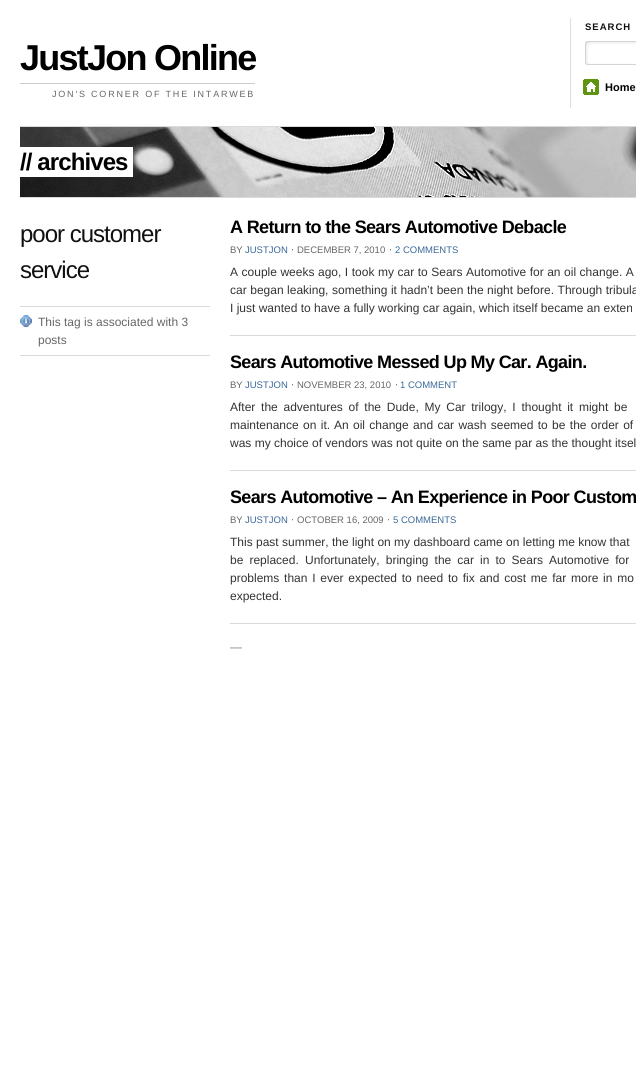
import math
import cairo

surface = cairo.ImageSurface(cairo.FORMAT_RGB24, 636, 1091)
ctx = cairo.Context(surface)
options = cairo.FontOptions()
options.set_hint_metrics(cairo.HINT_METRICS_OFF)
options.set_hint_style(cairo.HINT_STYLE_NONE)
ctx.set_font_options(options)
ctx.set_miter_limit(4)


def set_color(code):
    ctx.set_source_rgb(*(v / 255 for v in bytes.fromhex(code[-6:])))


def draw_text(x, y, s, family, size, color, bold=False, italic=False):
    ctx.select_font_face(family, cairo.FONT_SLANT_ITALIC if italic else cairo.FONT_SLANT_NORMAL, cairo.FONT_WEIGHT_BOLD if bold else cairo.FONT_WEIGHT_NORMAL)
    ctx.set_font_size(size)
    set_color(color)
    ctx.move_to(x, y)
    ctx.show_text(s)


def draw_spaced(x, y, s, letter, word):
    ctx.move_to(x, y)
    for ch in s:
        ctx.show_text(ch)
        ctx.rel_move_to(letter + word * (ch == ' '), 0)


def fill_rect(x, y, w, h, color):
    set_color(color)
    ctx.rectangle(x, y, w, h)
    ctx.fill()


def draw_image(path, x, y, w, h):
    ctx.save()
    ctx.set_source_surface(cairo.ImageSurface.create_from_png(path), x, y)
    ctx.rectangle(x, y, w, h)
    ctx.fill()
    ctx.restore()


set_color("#ffffff")
ctx.paint()
ctx.select_font_face("Liberation Sans", cairo.FONT_SLANT_NORMAL, cairo.FONT_WEIGHT_BOLD)
ctx.set_font_size(36)
set_color("#000000")
draw_spaced(20, 70, "JustJon Online", -1.75, 0)
fill_rect(20, 83, 235, 1, "#cccccc")
ctx.select_font_face("Liberation Sans")
ctx.set_font_size(9)
set_color("#666666")
draw_spaced(52, 97, "JON'S CORNER OF THE INTARWEB", 1.8, 0)
fill_rect(570, 18, 1, 90, "#dddddd")
ctx.select_font_face("Liberation Sans", cairo.FONT_SLANT_NORMAL, cairo.FONT_WEIGHT_BOLD)
ctx.set_font_size(9.5)
set_color("#111111")
draw_spaced(585, 30, "SEARCH", 1, 0)
draw_image("assets/img1.png", 585, 41, 51, 24)
draw_image("assets/img2.png", 583, 79, 16, 16)
draw_text(605, 91, "Home", "Liberation Sans", 11, "#000000", bold=True)
draw_image("assets/img3.png", 20, 127, 616, 70)
fill_rect(20, 126, 616, 1, "#dadada")
fill_rect(20, 197, 616, 1, "#dadada")
fill_rect(20, 147, 113, 30, "#ffffff")
ctx.set_font_size(24)
set_color("#000000")
draw_spaced(20, 170, "// archives", -0.9, 0)
ctx.select_font_face("Liberation Sans")
set_color("#111111")
draw_spaced(20, 242, "poor customer", -1, 0)
draw_spaced(20, 278, "service", -1, 0)
fill_rect(20, 306, 190, 1, "#dadada")
draw_image("assets/img4.png", 20, 315, 12, 12)
fill_rect(20, 355, 190, 1, "#dadada")
draw_text(38, 326, "This tag is associated with 3", "Liberation Sans", 12, "#666666")
draw_text(38, 344, "posts", "Liberation Sans", 12, "#666666")
fill_rect(230, 335, 406, 1, "#dadada")
ctx.select_font_face("Liberation Sans", cairo.FONT_SLANT_NORMAL, cairo.FONT_WEIGHT_BOLD)
ctx.set_font_size(18)
set_color("#000000")
draw_spaced(230, 233, "A Return to the Sears Automotive Debacle", -0.65, 0)
draw_text(230, 253, "BY", "Liberation Sans", 9.5, "#666666")
draw_text(245, 253, "JUSTJON", "Liberation Sans", 9.5, "#3a6999")
draw_text(291, 253, "⋅", "DejaVu Sans", 9.5, "#666666")
draw_text(297, 253, "DECEMBER 7, 2010", "Liberation Sans", 9.5, "#666666")
draw_text(389, 253, "⋅", "DejaVu Sans", 9.5, "#666666")
draw_text(395, 253, "2 COMMENTS", "Liberation Sans", 9.5, "#3a6999")
ctx.set_font_size(12)
set_color("#333333")
draw_spaced(230, 276, "A couple weeks ago, I took my car to Sears Automotive for an oil change. A", 0, 0.2)
draw_spaced(230, 294, "car began leaking, something it hadn’t been the night before. Through tribula", 0, 0.2)
draw_text(230, 312, "I just wanted to have a fully working car again, which itself became an exten", "Liberation Sans", 12, "#333333")
fill_rect(230, 470, 406, 1, "#dadada")
ctx.select_font_face("Liberation Sans", cairo.FONT_SLANT_NORMAL, cairo.FONT_WEIGHT_BOLD)
ctx.set_font_size(18)
set_color("#000000")
draw_spaced(230, 368, "Sears Automotive Messed Up My Car. Again.", -0.65, 0)
draw_text(230, 388, "BY", "Liberation Sans", 9.5, "#666666")
draw_text(245, 388, "JUSTJON", "Liberation Sans", 9.5, "#3a6999")
draw_text(291, 388, "⋅", "DejaVu Sans", 9.5, "#666666")
draw_text(297, 388, "NOVEMBER 23, 2010", "Liberation Sans", 9.5, "#666666")
draw_text(395, 388, "⋅", "DejaVu Sans", 9.5, "#666666")
draw_text(400, 388, "1 COMMENT", "Liberation Sans", 9.5, "#3a6999")
ctx.set_font_size(12)
set_color("#333333")
draw_spaced(230, 411, "After the adventures of the Dude, My Car trilogy, I thought it might be", 0, 2.4)
draw_spaced(230, 429, "maintenance on it.", 0, 1)
draw_spaced(334, 429, "An oil change and car wash seemed to be the order of", 0, 1)
draw_text(230, 447, "was my choice of vendors was not quite on the same par as the thought itsel", "Liberation Sans", 12, "#333333")
fill_rect(230, 623, 406, 1, "#dadada")
ctx.select_font_face("Liberation Sans", cairo.FONT_SLANT_NORMAL, cairo.FONT_WEIGHT_BOLD)
ctx.set_font_size(18)
set_color("#000000")
draw_spaced(230, 503, "Sears Automotive – An Experience in Poor Custom", -0.65, 0)
draw_text(230, 523, "BY", "Liberation Sans", 9.5, "#666666")
draw_text(245, 523, "JUSTJON", "Liberation Sans", 9.5, "#3a6999")
draw_text(291, 523, "⋅", "DejaVu Sans", 9.5, "#666666")
draw_text(297, 523, "OCTOBER 16, 2009", "Liberation Sans", 9.5, "#666666")
draw_text(387, 523, "⋅", "DejaVu Sans", 9.5, "#666666")
draw_text(393, 523, "5 COMMENTS", "Liberation Sans", 9.5, "#3a6999")
draw_text(230, 546, "This past summer, the light on my dashboard came on letting me know that", "Liberation Sans", 12, "#333333")
draw_spaced(230, 564, "be replaced.", 0, 2.75)
draw_spaced(305, 564, "Unfortunately, bringing the car in to Sears Automotive for", 0, 2.75)
draw_spaced(230, 582, "problems than I ever expected to need to fix and cost me far more in mo", 0, 1.4)
draw_text(230, 600, "expected.", "Liberation Sans", 12, "#333333")
draw_text(230, 651, "—", "Liberation Sans", 12, "#818181")
surface.write_to_png("output.png")
